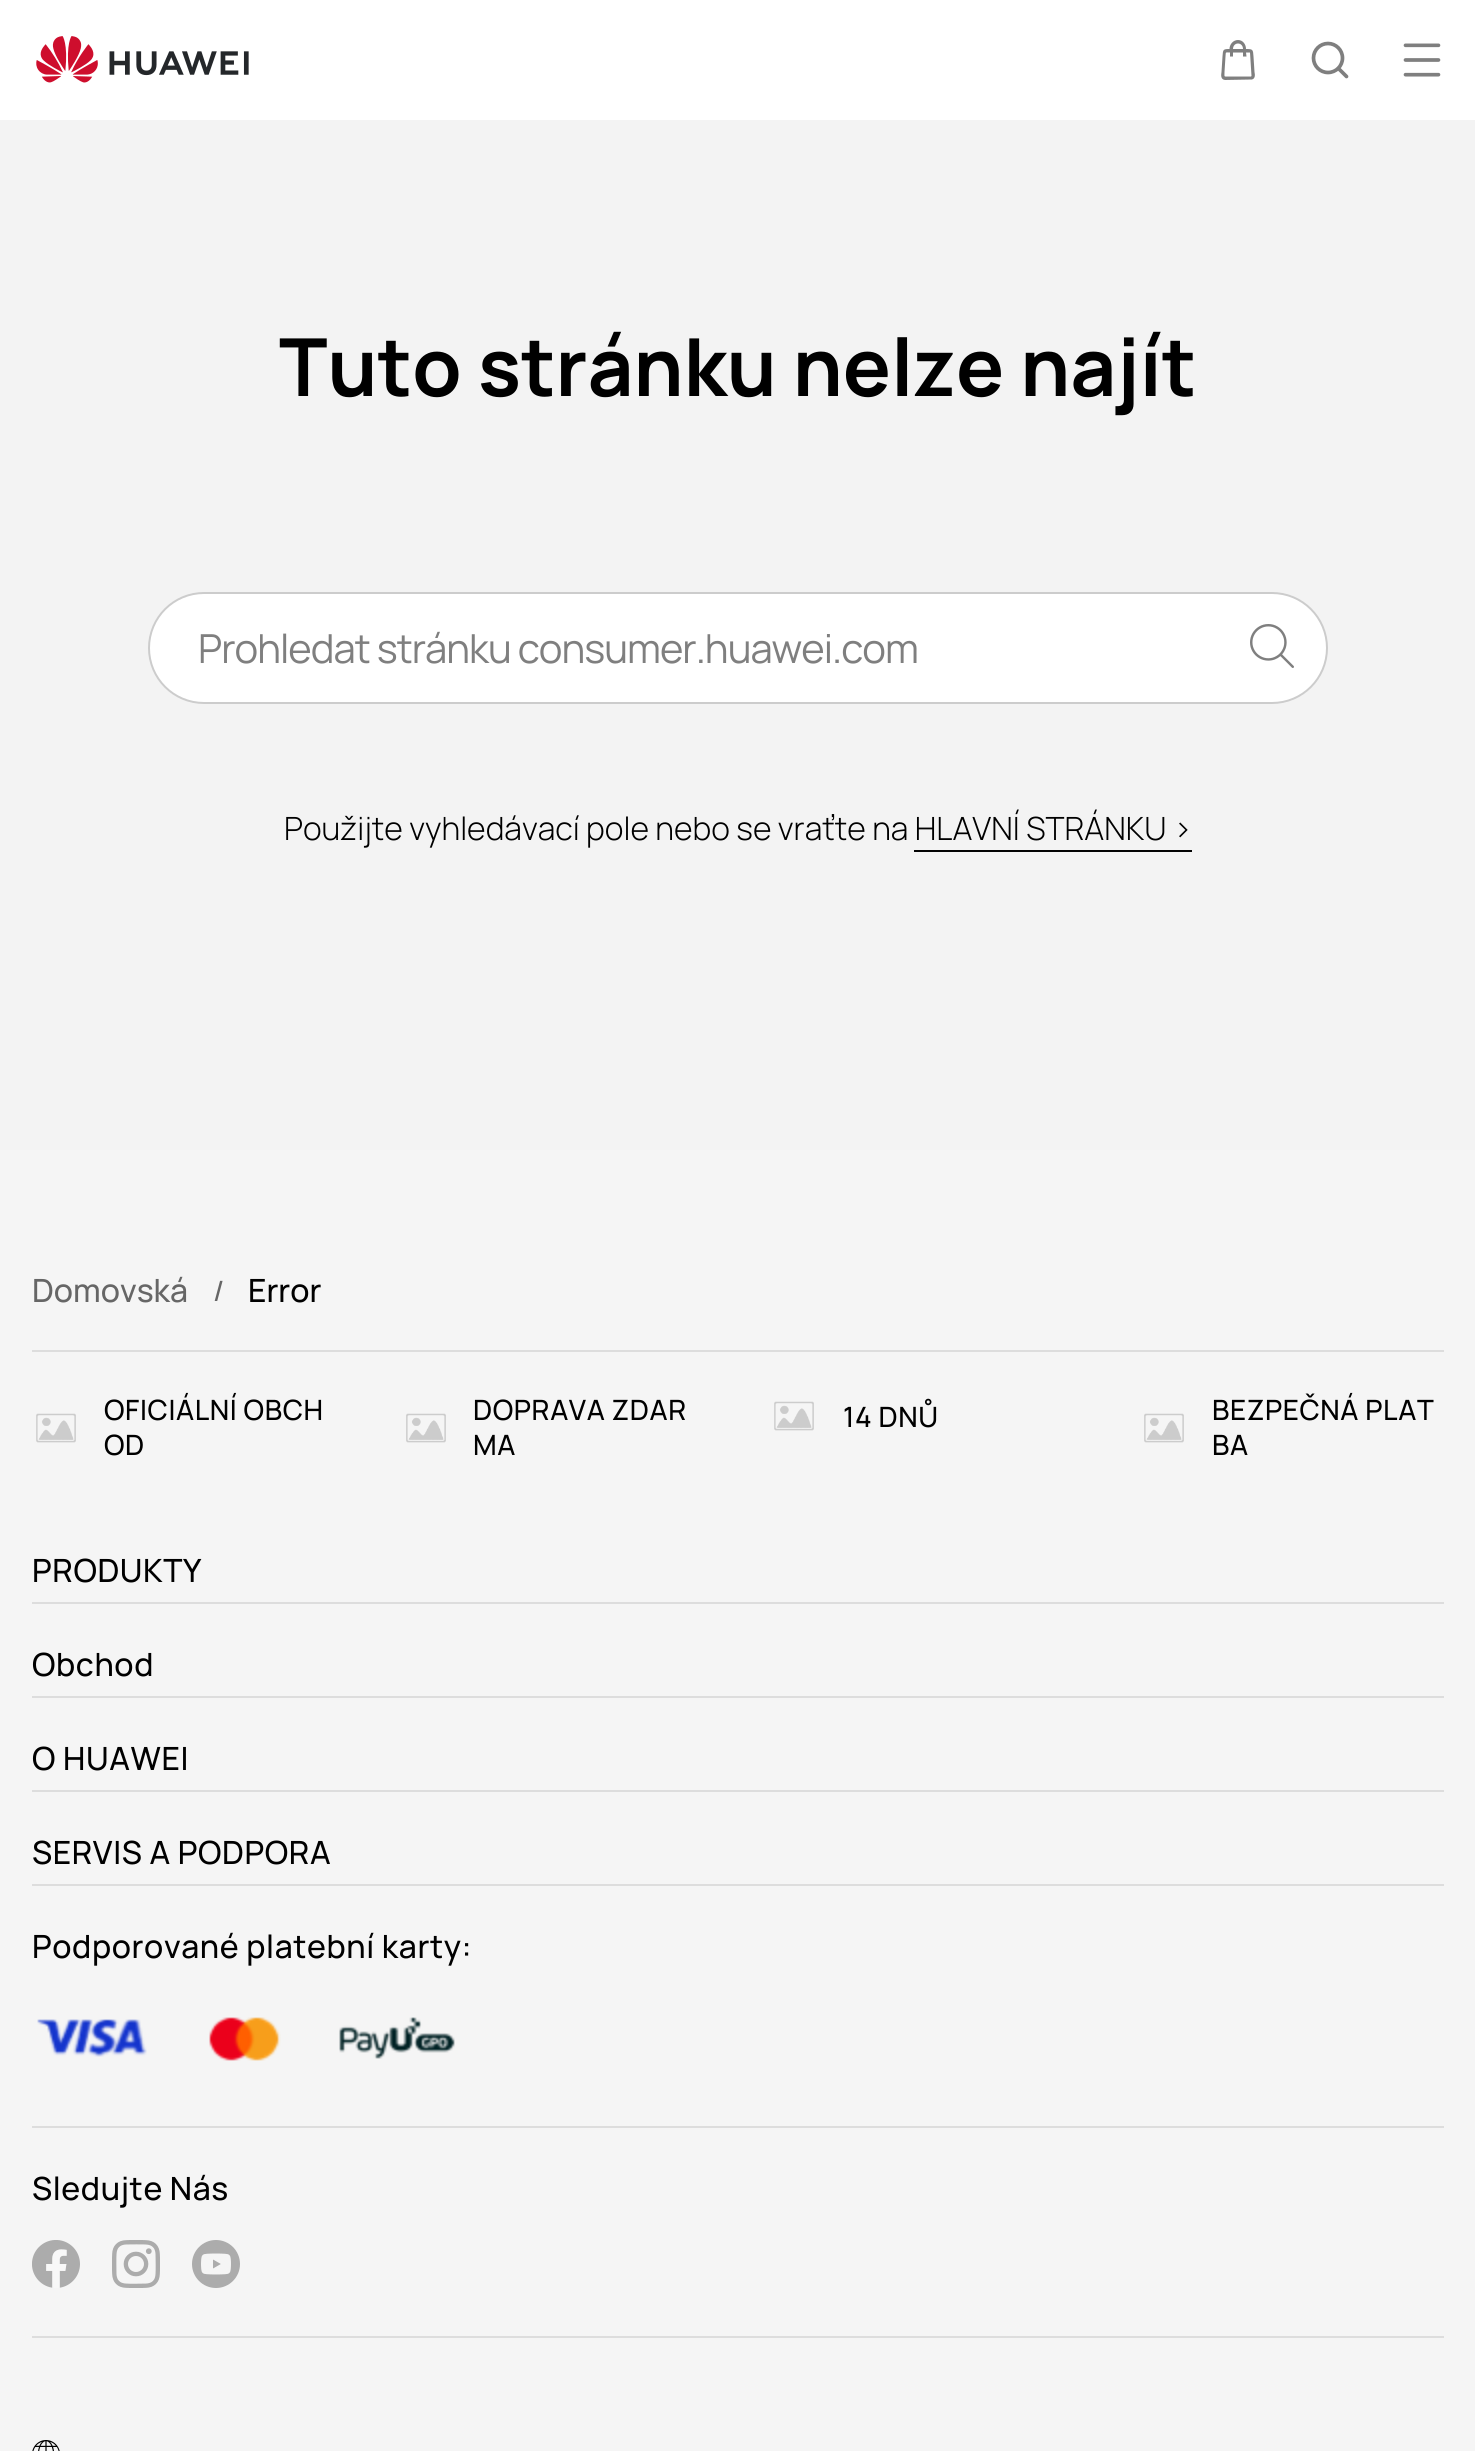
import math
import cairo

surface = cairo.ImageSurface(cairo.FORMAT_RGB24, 1475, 2451)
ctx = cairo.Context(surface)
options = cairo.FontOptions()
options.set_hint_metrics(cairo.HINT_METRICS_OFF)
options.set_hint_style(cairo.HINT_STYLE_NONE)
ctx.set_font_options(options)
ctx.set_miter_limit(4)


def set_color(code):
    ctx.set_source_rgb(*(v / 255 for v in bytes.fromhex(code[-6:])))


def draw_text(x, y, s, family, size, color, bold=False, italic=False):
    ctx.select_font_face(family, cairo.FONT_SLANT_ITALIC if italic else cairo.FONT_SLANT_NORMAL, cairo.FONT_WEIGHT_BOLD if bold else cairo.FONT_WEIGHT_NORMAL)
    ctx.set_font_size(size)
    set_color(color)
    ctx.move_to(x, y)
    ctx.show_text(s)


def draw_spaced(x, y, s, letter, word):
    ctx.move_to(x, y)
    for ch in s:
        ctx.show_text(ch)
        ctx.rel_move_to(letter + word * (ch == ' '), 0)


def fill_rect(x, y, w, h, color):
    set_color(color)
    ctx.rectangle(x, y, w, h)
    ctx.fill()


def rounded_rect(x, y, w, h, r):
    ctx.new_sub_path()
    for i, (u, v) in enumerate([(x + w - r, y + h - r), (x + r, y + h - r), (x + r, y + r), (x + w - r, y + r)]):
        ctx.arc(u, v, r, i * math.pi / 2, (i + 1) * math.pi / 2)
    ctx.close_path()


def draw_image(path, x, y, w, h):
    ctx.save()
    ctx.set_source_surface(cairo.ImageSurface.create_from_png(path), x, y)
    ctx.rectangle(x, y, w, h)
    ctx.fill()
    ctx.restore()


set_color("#ffffff")
ctx.paint()
draw_image("assets/img1.png", 36, 36, 213, 47)
set_color("#7f7f7f")
ctx.set_fill_rule(cairo.FILL_RULE_EVEN_ODD)
ctx.new_path()
ctx.move_to(1238, 40)
ctx.curve_to(1233, 40, 1229.5, 44.5, 1229.5, 49)
ctx.curve_to(1223, 49, 1223, 49.5, 1222.5, 56.5)
ctx.line_to(1221.5, 72)
ctx.curve_to(1221, 75, 1220.5, 79.5, 1225, 80)
ctx.line_to(1252, 79.5)
ctx.curve_to(1255.5, 78.5, 1255, 74.5, 1254.5, 72)
ctx.line_to(1253.5, 56.5)
ctx.curve_to(1253, 49.5, 1253, 49, 1246, 49)
ctx.curve_to(1246, 44.5, 1243, 40, 1238, 40)
ctx.close_path()
ctx.move_to(1238, 43.5)
ctx.curve_to(1241, 43.5, 1243, 46, 1243, 49)
ctx.line_to(1233, 49)
ctx.curve_to(1233, 46, 1235, 43.5, 1238, 43.5)
ctx.close_path()
ctx.move_to(1249.5, 52.5)
ctx.line_to(1250, 52.5)
ctx.line_to(1251.5, 76)
ctx.line_to(1251, 76.5)
ctx.line_to(1229.5, 76.5)
ctx.curve_to(1223.5, 76.5, 1224.5, 77.5, 1224.5, 72)
ctx.line_to(1225.5, 56.5)
ctx.curve_to(1226, 51.5, 1225, 52.5, 1230, 52.5)
ctx.line_to(1230, 56.5)
ctx.line_to(1233, 56.5)
ctx.line_to(1233, 52.5)
ctx.line_to(1243, 52.5)
ctx.line_to(1243, 56.5)
ctx.line_to(1246.5, 56.5)
ctx.line_to(1246, 52.5)
ctx.close_path()
ctx.fill()
ctx.arc(1328, 58, 14.5, 0, 2 * math.pi)
ctx.set_line_width(3.7)
ctx.stroke()
ctx.new_path()
ctx.move_to(1346.5, 76.5)
ctx.line_to(1338.5, 68.5)
ctx.set_line_cap(cairo.LINE_CAP_ROUND)
ctx.set_line_join(cairo.LINE_JOIN_ROUND)
ctx.stroke()
draw_image("assets/img2.png", 1403, 43, 38, 34)
fill_rect(0, 120, 1475, 1030, "#f3f3f3")
draw_text(279, 396, "Tuto stránku nelze najít", "Manrope", 80, "#000000", bold=True)
set_color("#ffffff")
rounded_rect(148, 592, 1180, 112, 56)
ctx.fill()
rounded_rect(149, 593, 1178, 110, 55)
ctx.set_source_rgba(0, 0, 0, 0.2)
ctx.set_line_width(2)
ctx.set_line_cap(cairo.LINE_CAP_BUTT)
ctx.set_line_join(cairo.LINE_JOIN_MITER)
ctx.stroke()
ctx.select_font_face("Manrope")
ctx.set_font_size(40)
set_color("#7f7f7f")
draw_spaced(198, 663, "Prohledat stránku consumer.huawei.com", -1, 0)
draw_image("assets/img3.png", 1250, 624, 44, 44)
draw_text(284, 840, "Použijte vyhledávací pole nebo se vraťte na HLAVNÍ STRÁNKU >", "Manrope Light", 32, "#000000")
fill_rect(914, 850, 278, 2, "#030303")
fill_rect(0, 1150, 1475, 1301, "#f5f5f5")
fill_rect(32, 1350, 1412, 2, "#dddddd")
draw_text(32, 1302, "Domovská", "Manrope Medium", 32, "#666666")
draw_text(213, 1301, "/", "Manrope Medium", 28, "#666666")
draw_text(248, 1302, "Error", "Manrope Medium", 32, "#000000")
draw_image("assets/img4.png", 36, 1413, 40, 30)
ctx.set_font_size(28)
draw_spaced(104, 1420, "OFICIÁLNÍ OBCH", 0.6, 0)
draw_spaced(104, 1455, "OD", 0.6, 0)
draw_image("assets/img5.png", 406, 1413, 40, 30)
draw_spaced(473, 1420, "DOPRAVA ZDAR", 0.6, 0)
draw_spaced(473, 1455, "MA", 0.6, 0)
draw_image("assets/img4.png", 774, 1401, 40, 30)
draw_spaced(843, 1427, "14 DNŮ", 0.6, 0)
draw_image("assets/img5.png", 1144, 1413, 40, 30)
draw_spaced(1212, 1420, "BEZPEČNÁ PLAT", 0.6, 0)
draw_spaced(1212, 1455, "BA", 0.6, 0)
fill_rect(32, 1602, 1412, 2, "#dddddd")
ctx.set_font_size(32)
set_color("#000000")
draw_spaced(32, 1582, "PRODUKTY", 0.6, 0)
fill_rect(32, 1696, 1412, 2, "#dddddd")
set_color("#000000")
draw_spaced(32, 1676, "Obchod", 0.6, 0)
fill_rect(32, 1790, 1412, 2, "#dddddd")
set_color("#000000")
draw_spaced(32, 1770, "O HUAWEI", 0.6, 0)
fill_rect(32, 1884, 1412, 2, "#dddddd")
set_color("#000000")
draw_spaced(32, 1864, "SERVIS A PODPORA", 0.6, 0)
fill_rect(32, 2336, 1412, 2, "#dddddd")
fill_rect(32, 2126, 1412, 2, "#dddddd")
set_color("#000000")
draw_spaced(32, 1958, "Podporované platební karty:", 0.6, 0)
draw_image("assets/img6.png", 37, 2019, 110, 38)
draw_image("assets/img7.png", 209, 2017, 72, 44)
draw_image("assets/img8.png", 339, 2017, 116, 42)
draw_spaced(32, 2200, "Sledujte Nás", 0.6, 0)
draw_image("assets/img9.png", 32, 2240, 48, 48)
draw_image("assets/img10.png", 112, 2240, 48, 48)
draw_image("assets/img11.png", 192, 2240, 48, 48)
draw_image("assets/img12.png", 32, 2440, 28, 11)
surface.write_to_png("output.png")
